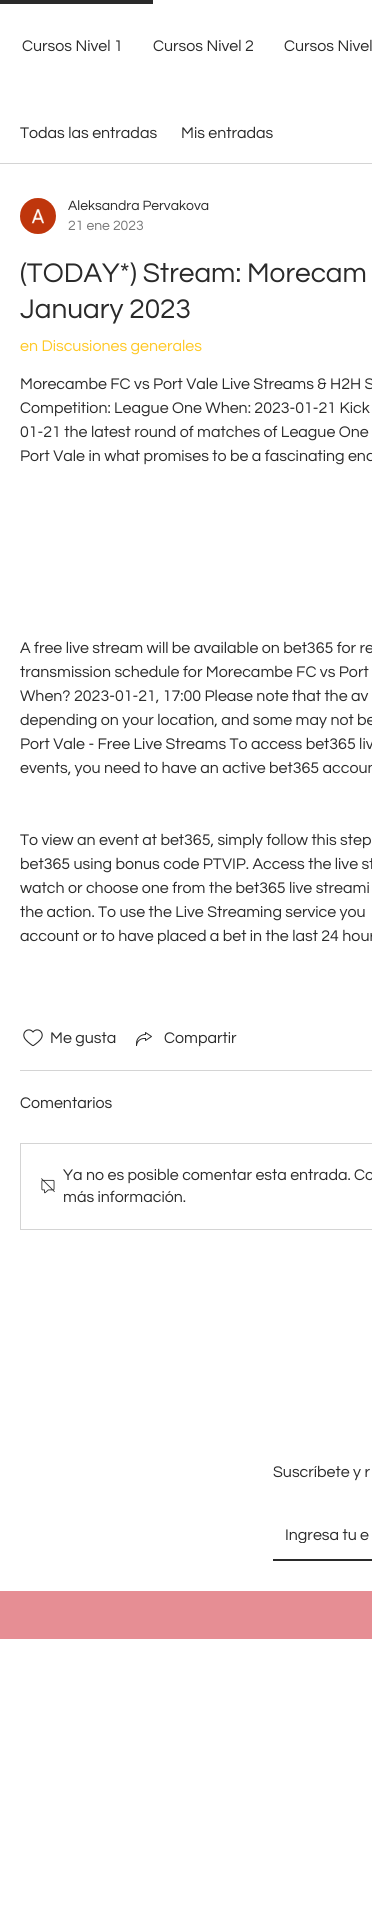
import math
import cairo

surface = cairo.ImageSurface(cairo.FORMAT_RGB24, 372, 1928)
ctx = cairo.Context(surface)
options = cairo.FontOptions()
options.set_hint_metrics(cairo.HINT_METRICS_OFF)
options.set_hint_style(cairo.HINT_STYLE_NONE)
ctx.set_font_options(options)
ctx.set_miter_limit(4)


def set_color(code):
    ctx.set_source_rgb(*(v / 255 for v in bytes.fromhex(code[-6:])))


def draw_text(x, y, s, family, size, color, bold=False, italic=False):
    ctx.select_font_face(family, cairo.FONT_SLANT_ITALIC if italic else cairo.FONT_SLANT_NORMAL, cairo.FONT_WEIGHT_BOLD if bold else cairo.FONT_WEIGHT_NORMAL)
    ctx.set_font_size(size)
    set_color(color)
    ctx.move_to(x, y)
    ctx.show_text(s)


def fill_rect(x, y, w, h, color):
    set_color(color)
    ctx.rectangle(x, y, w, h)
    ctx.fill()


def draw_image(path, x, y, w, h):
    ctx.save()
    ctx.set_source_surface(cairo.ImageSurface.create_from_png(path), x, y)
    ctx.rectangle(x, y, w, h)
    ctx.fill()
    ctx.restore()


set_color("#ffffff")
ctx.paint()
fill_rect(0, 0, 153, 4, "#2a2a2a")
draw_text(22, 51, "Cursos Nivel 1", "Questrial", 16, "#2a2a2a")
draw_text(153, 51, "Cursos Nivel 2", "Questrial", 16, "#2a2a2a")
draw_text(284, 51, "Cursos Nivel", "Questrial", 16, "#2a2a2a")
fill_rect(0, 163, 372, 1, "#d4d4d4")
draw_text(20, 138, "Todas las entradas", "Questrial", 16, "#2a2a2a")
draw_text(181, 138, "Mis entradas", "Questrial", 16, "#2a2a2a")
draw_image("assets/img1.png", 20, 198, 36, 36)
draw_text(68, 210, "Aleksandra Pervakova", "Questrial", 14, "#2a2a2a")
draw_text(68, 230, "21 ene 2023", "Questrial", 14, "#777777")
draw_text(20, 282, "(TODAY*) Stream: Morecam", "Questrial", 28, "#2a2a2a")
draw_text(20, 318, "January 2023", "Questrial", 28, "#2a2a2a")
draw_text(20, 351, "en Discusiones generales", "Questrial", 16, "#ffc824")
draw_text(20, 389, "Morecambe FC vs Port Vale Live Streams & H2H S", "Questrial", 16, "#2a2a2a")
draw_text(20, 413, "Competition: League One When: 2023-01-21 Kick", "Questrial", 16, "#2a2a2a")
draw_text(20, 437, "01-21 the latest round of matches of League One", "Questrial", 16, "#2a2a2a")
draw_text(20, 461, "Port Vale in what promises to be a fascinating enc", "Questrial", 16, "#2a2a2a")
draw_text(20, 653, "A free live stream will be available on bet365 for re", "Questrial", 16, "#2a2a2a")
draw_text(20, 677, "transmission schedule for Morecambe FC vs Port", "Questrial", 16, "#2a2a2a")
draw_text(20, 701, "When? 2023-01-21, 17:00 Please note that the av", "Questrial", 16, "#2a2a2a")
draw_text(20, 725, "depending on your location, and some may not be", "Questrial", 16, "#2a2a2a")
draw_text(20, 749, "Port Vale - Free Live Streams To access bet365 liv", "Questrial", 16, "#2a2a2a")
draw_text(20, 773, "events, you need to have an active bet365 accoun", "Questrial", 16, "#2a2a2a")
draw_text(20, 845, "To view an event at bet365, simply follow this step", "Questrial", 16, "#2a2a2a")
draw_text(20, 869, "bet365 using bonus code PTVIP. Access the live st", "Questrial", 16, "#2a2a2a")
draw_text(20, 893, "watch or choose one from the bet365 live streami", "Questrial", 16, "#2a2a2a")
draw_text(20, 917, "the action. To use the Live Streaming service you", "Questrial", 16, "#2a2a2a")
draw_text(20, 941, "account or to have placed a bet in the last 24 hour", "Questrial", 16, "#2a2a2a")
draw_image("assets/img2.png", 23, 1029, 20, 18)
draw_text(50, 1043, "Me gusta", "Questrial", 16, "#2a2a2a")
draw_image("assets/img3.png", 136, 1032, 16, 14)
draw_text(164, 1043, "Compartir", "Questrial", 16, "#2a2a2a")
fill_rect(20, 1070, 352, 1, "#d4d4d4")
draw_text(20, 1108, "Comentarios", "Questrial", 16, "#2a2a2a")
ctx.rectangle(20.5, 1143.5, 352, 86)
set_color("#d4d4d4")
ctx.set_line_width(1)
ctx.stroke()
draw_image("assets/img4.png", 41, 1178, 14, 16)
draw_text(63, 1180, "Ya no es posible comentar esta entrada. Co", "Questrial", 16, "#2a2a2a")
draw_text(63, 1202, "más información.", "Questrial", 16, "#2a2a2a")
draw_text(273, 1477, "Suscríbete y r", "Questrial", 16, "#2a2a2a")
fill_rect(273, 1559, 99, 2, "#2a2a2a")
ctx.save()
ctx.rectangle(285, 1527, 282, 16)
ctx.clip()
draw_text(285, 1540, "Ingresa tu e", "Questrial", 16, "#2a2a2a")
ctx.restore()
fill_rect(0, 1591, 372, 48, "#e68e94")
surface.write_to_png("output.png")
